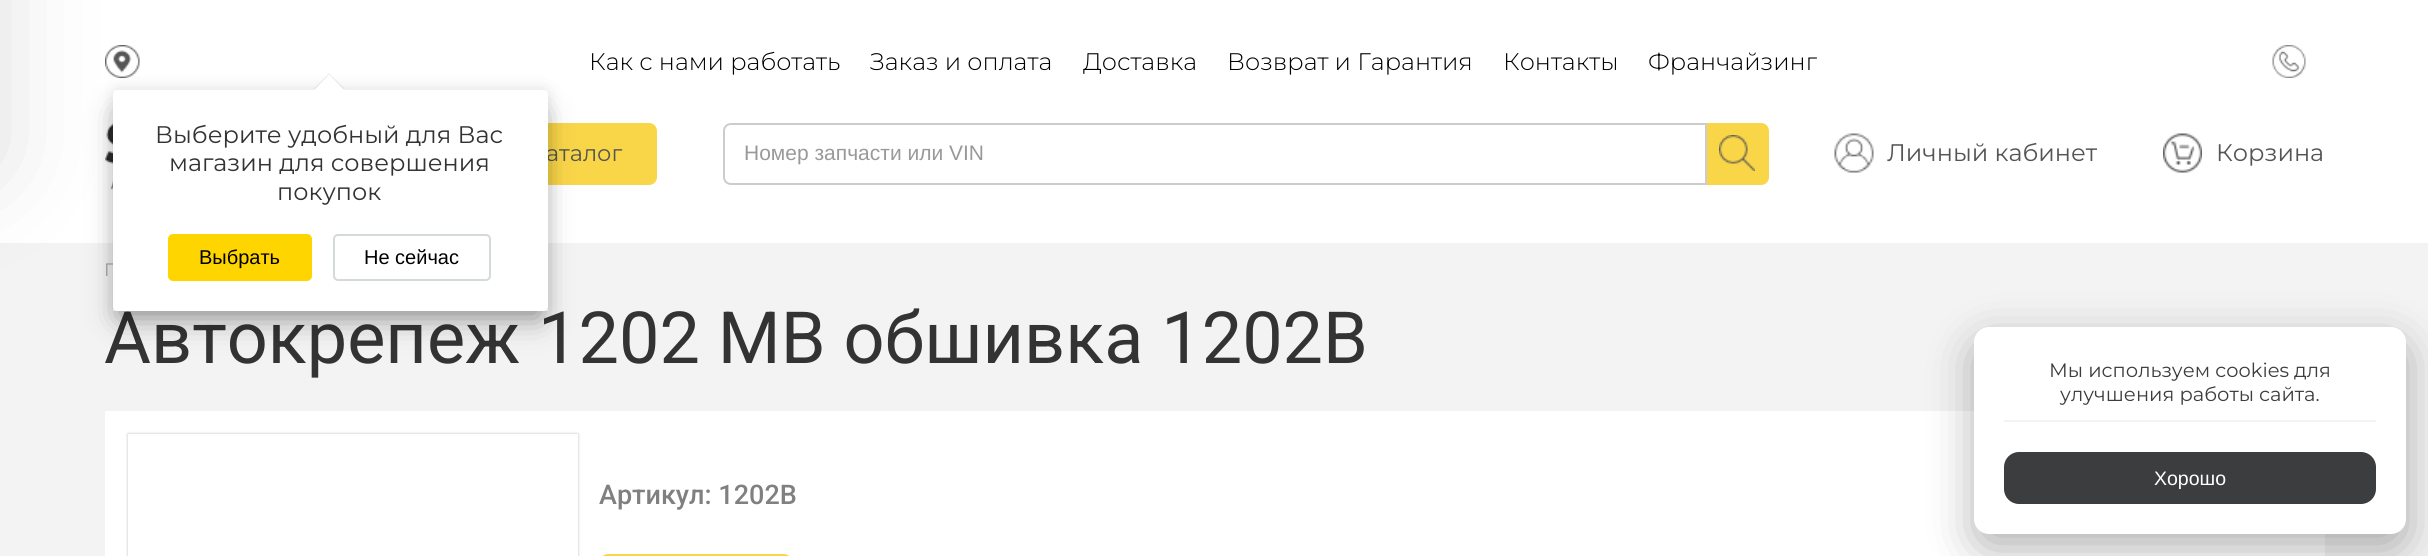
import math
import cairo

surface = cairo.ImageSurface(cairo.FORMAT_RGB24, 2428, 556)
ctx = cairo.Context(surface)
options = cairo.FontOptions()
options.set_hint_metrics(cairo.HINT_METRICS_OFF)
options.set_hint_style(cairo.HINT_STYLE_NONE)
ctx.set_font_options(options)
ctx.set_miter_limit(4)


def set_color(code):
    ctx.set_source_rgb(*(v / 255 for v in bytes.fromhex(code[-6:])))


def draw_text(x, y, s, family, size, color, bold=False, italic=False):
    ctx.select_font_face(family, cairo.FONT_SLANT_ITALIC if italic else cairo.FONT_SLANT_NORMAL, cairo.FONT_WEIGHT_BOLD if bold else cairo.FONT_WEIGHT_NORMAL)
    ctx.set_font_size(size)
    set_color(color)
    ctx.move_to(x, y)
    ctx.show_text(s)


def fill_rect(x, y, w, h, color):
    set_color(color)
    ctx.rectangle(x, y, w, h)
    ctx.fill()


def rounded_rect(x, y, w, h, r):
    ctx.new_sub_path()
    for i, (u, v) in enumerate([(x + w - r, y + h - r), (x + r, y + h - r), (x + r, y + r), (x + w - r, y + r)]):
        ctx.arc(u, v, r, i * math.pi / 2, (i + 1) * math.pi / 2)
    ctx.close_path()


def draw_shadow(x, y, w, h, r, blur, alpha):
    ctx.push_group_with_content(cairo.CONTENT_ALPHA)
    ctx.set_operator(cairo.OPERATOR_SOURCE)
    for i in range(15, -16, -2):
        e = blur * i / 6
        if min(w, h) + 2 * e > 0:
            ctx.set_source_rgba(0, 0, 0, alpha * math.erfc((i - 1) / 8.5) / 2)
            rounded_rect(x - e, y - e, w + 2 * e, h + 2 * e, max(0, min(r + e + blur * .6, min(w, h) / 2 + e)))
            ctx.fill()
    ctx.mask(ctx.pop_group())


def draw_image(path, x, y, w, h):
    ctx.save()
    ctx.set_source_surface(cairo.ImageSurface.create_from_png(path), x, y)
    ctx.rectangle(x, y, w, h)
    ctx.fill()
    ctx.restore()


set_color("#f3f3f3")
ctx.paint()
fill_rect(0, 0, 2428, 243, "#ffffff")
draw_image("assets/img1.png", 105, 45, 35, 33)
draw_image("assets/img3.png", 105, 123, 8, 67)
set_color("#f9d548")
rounded_rect(471, 123, 186, 62, 8)
ctx.fill()
draw_text(546, 161, "аталог", "Montserrat", 22.5, "#555555")
draw_text(104, 276, "Г", "Montserrat", 18, "#a2a2a2")
set_color("#000000")
draw_shadow(113, 90, 435, 221, 5, 7.5, 0.1)
draw_text(104, 363, "Автокрепеж 1202 MB обшивка 1202В", "Roboto", 72, "#333333")
set_color("#ffffff")
rounded_rect(113, 90, 435, 221, 5)
ctx.fill()
set_color("#cccccc")
draw_shadow(-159, -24, 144, 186, 0, 53, 0.86)
draw_text(589, 70, "Как с нами работать", "Montserrat Light", 24, "#000000")
draw_text(870, 70, "Заказ и оплата", "Montserrat Light", 24, "#000000")
draw_text(1083, 70, "Доставка", "Montserrat Light", 24, "#000000")
draw_text(1227, 70, "Возврат и Гарантия", "Montserrat Light", 24, "#000000")
draw_text(1503, 70, "Контакты", "Montserrat Light", 24, "#000000")
draw_text(1648, 70, "Франчайзинг", "Montserrat Light", 24, "#000000")
draw_image("assets/img2.png", 2272, 45, 34, 33)
ctx.new_path()
ctx.move_to(731, 124)
ctx.line_to(1706, 124)
ctx.line_to(1706, 184)
ctx.line_to(731, 184)
ctx.curve_to(727, 184, 724, 181, 724, 177)
ctx.line_to(724, 131)
ctx.curve_to(724, 127, 727, 124, 731, 124)
ctx.close_path()
set_color("#cccccc")
ctx.stroke()
draw_text(744, 160, "Номер запчасти или VIN", "Liberation Sans", 21, "#999999")
set_color("#f9d548")
ctx.new_path()
ctx.move_to(1707, 123)
ctx.line_to(1761, 123)
ctx.curve_to(1765.5, 123, 1769, 126.5, 1769, 131)
ctx.line_to(1769, 177)
ctx.curve_to(1769, 181.5, 1765.5, 185, 1761, 185)
ctx.line_to(1707, 185)
ctx.close_path()
ctx.fill()
draw_image("assets/img4.png", 1719, 135, 36, 36)
draw_image("assets/img5.png", 1834, 133, 40, 40)
draw_text(1887, 161, "Личный кабинет", "Montserrat", 24, "#555555")
draw_image("assets/img6.png", 2163, 133, 39, 40)
draw_text(2216, 161, "Корзина", "Montserrat", 24, "#555555")
ctx.save()
ctx.set_fill_rule(cairo.FILL_RULE_EVEN_ODD)
ctx.new_path()
ctx.move_to(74, 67)
ctx.line_to(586, 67)
ctx.line_to(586, 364)
ctx.line_to(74, 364)
ctx.close_path()
ctx.move_to(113, 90)
ctx.line_to(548, 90)
ctx.line_to(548, 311)
ctx.line_to(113, 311)
ctx.close_path()
ctx.clip()
set_color("#000000")
draw_shadow(120, 113, 420, 205, 0, 15, 0.4)
ctx.restore()
ctx.set_source_rgba(0, 0, 0, 0.06)
ctx.new_path()
ctx.move_to(313.5, 89)
ctx.line_to(329, 73)
ctx.line_to(329, 75)
ctx.line_to(315.5, 89)
ctx.close_path()
ctx.move_to(329, 73)
ctx.line_to(345, 89)
ctx.line_to(343, 89)
ctx.line_to(329, 75)
ctx.close_path()
ctx.fill()
gradient = cairo.LinearGradient(329, 75, 329, 107)
gradient.add_color_stop_rgba(0.5, 1, 1, 1, 1)
gradient.add_color_stop_rgba(0.5, 1, 1, 1, 0)
ctx.set_source(gradient)
ctx.new_path()
ctx.move_to(345, 91)
ctx.line_to(329, 107)
ctx.line_to(313.5, 91)
ctx.line_to(329, 75)
ctx.close_path()
ctx.fill()
draw_text(155, 143, "Выберите удобный для Вас", "Montserrat", 24, "#333333")
draw_text(169, 171, "магазин для совершения", "Montserrat", 24, "#333333")
draw_text(277, 200, "покупок", "Montserrat", 24, "#333333")
set_color("#ffd500")
rounded_rect(169, 235, 142, 45, 4)
ctx.fill_preserve()
ctx.stroke()
draw_text(199, 264, "Выбрать", "Liberation Sans", 20, "#000000")
rounded_rect(334, 235, 156, 45, 4)
set_color("#d4d9db")
ctx.stroke()
draw_text(364, 264, "Не сейчас", "Liberation Sans", 20, "#000000")
fill_rect(105, 411, 2220, 145, "#ffffff")
set_color("#000000")
draw_shadow(128, 434, 450, 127, 0, 1.5, 0.25)
fill_rect(128, 434, 450, 122, "#ffffff")
draw_text(599, 504, "Артикул: 1202В", "Roboto Medium", 27, "#808080")
set_color("#f9d548")
rounded_rect(600, 554, 192, 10, 8)
ctx.fill()
set_color("#000002")
draw_shadow(1974, 342, 432, 207, 15, 22.5, 0.3)
set_color("#ffffff")
rounded_rect(1974, 327, 432, 207, 15)
ctx.fill()
fill_rect(2004, 420, 372, 2, "#f0f4f7")
draw_text(2049, 377, "Мы используем cookies для", "Montserrat", 19.5, "#3b3d3f")
draw_text(2060, 401, "улучшения работы сайта.", "Montserrat", 19.5, "#3b3d3f")
rounded_rect(2004, 452, 372, 52, 15)
ctx.fill()
draw_text(2154, 485, "Хорошо", "Liberation Sans", 19.5, "#ffffff")
surface.write_to_png("output.png")
